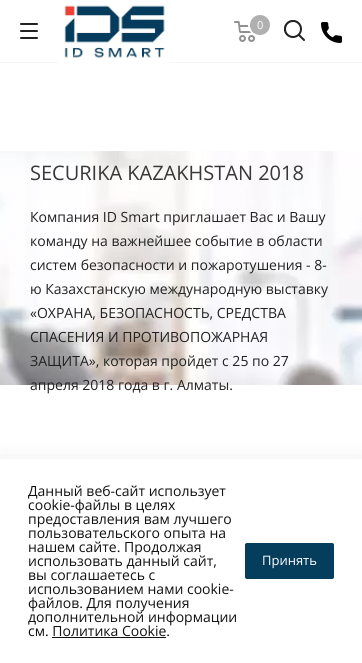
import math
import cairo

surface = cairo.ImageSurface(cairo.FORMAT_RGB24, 362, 663)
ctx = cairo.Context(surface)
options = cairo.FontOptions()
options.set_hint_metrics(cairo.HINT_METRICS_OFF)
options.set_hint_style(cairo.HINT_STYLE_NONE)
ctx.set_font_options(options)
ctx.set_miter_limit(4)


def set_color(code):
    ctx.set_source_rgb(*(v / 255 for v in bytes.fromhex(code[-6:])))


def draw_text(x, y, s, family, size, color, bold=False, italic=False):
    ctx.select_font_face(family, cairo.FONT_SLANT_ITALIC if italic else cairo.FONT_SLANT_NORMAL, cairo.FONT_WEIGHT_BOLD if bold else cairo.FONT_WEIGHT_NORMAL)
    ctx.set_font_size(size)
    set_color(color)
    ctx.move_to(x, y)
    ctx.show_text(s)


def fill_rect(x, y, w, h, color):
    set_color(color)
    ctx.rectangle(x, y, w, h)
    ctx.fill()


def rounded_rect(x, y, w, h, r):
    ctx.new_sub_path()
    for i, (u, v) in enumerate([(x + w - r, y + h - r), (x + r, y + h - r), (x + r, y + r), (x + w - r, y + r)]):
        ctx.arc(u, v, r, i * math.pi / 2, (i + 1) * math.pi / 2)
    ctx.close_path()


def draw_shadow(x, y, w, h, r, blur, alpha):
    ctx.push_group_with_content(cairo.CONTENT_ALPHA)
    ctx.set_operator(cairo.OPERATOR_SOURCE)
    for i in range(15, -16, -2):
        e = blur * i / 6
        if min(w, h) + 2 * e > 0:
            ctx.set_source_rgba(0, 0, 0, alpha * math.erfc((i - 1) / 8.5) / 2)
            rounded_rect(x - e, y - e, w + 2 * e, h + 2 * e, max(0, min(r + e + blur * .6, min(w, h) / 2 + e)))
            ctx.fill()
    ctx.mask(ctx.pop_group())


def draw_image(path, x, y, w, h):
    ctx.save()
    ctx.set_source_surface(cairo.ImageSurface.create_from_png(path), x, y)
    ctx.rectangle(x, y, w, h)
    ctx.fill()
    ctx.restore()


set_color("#ffffff")
ctx.paint()
fill_rect(0, 62, 362, 1, "#f5f5f5")
draw_image("assets/img1.png", 20, 23, 18, 16)
draw_image("assets/img2.png", 58, 5, 112, 58)
draw_image("assets/img3.png", 234, 21, 21, 21)
ctx.arc(260, 25, 11, 0, 2 * math.pi)
set_color("#ffffff")
ctx.stroke()
set_color("#b0b0b0")
ctx.arc(260, 25, 10, 0, 2 * math.pi)
ctx.fill()
draw_text(257, 29, "0", "Open Sans", 11, "#ffffff")
draw_image("assets/img4.png", 284, 20, 21, 21)
draw_image("assets/img5.png", 321, 22, 21, 21)
draw_image("assets/img6.png", 0, 151, 362, 234)
draw_text(30, 180, "SECURIKA KAZAKHSTAN 2018", "Open Sans", 20, "#383838")
draw_text(30, 222, "Компания ID Smart приглашает Вас и Вашу", "Open Sans", 14, "#222222")
draw_text(30, 246, "команду на важнейшее событие в области", "Open Sans", 14, "#222222")
draw_text(30, 270, "систем безопасности и пожаротушения - 8-", "Open Sans", 14, "#222222")
draw_text(30, 294, "ю Казахстанскую международную выставку", "Open Sans", 14, "#222222")
draw_text(30, 318, "«ОХРАНА, БЕЗОПАСНОСТЬ, СРЕДСТВА", "Open Sans", 14, "#222222")
draw_text(30, 342, "СПАСЕНИЯ И ПРОТИВОПОЖАРНАЯ", "Open Sans", 14, "#222222")
draw_text(30, 366, "ЗАЩИТА», которая пройдет с 25 по 27", "Open Sans", 14, "#222222")
draw_text(30, 390, "апреля 2018 года в г. Алматы.", "Open Sans", 14, "#222222")
set_color("#000000")
draw_shadow(0, 471, 362, 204, 0, 15, 0.18)
fill_rect(0, 459, 362, 204, "#ffffff")
draw_text(28, 496, "Данный веб-сайт использует", "Open Sans", 14, "#111111")
draw_text(28, 510, "cookie-файлы в целях", "Open Sans", 14, "#111111")
draw_text(28, 524, "предоставления вам лучшего", "Open Sans", 14, "#111111")
draw_text(28, 538, "пользовательского опыта на", "Open Sans", 14, "#111111")
draw_text(28, 552, "нашем сайте. Продолжая", "Open Sans", 14, "#111111")
draw_text(28, 566, "использовать данный сайт,", "Open Sans", 14, "#111111")
draw_text(28, 580, "вы соглашаетесь с", "Open Sans", 14, "#111111")
draw_text(28, 594, "использованием нами cookie-", "Open Sans", 14, "#111111")
draw_text(28, 608, "файлов. Для получения", "Open Sans", 14, "#111111")
draw_text(28, 622, "дополнительной информации", "Open Sans", 14, "#111111")
draw_text(28, 636, "см. Политика Cookie.", "Open Sans", 14, "#111111")
fill_rect(52, 637, 114, 1, "#111111")
set_color("#053d5d")
rounded_rect(245.5, 543.5, 88, 35, 1.5)
ctx.fill_preserve()
ctx.set_line_width(1)
ctx.stroke()
draw_text(262, 565, "Принять", "Open Sans", 13, "#ffffff")
surface.write_to_png("output.png")
